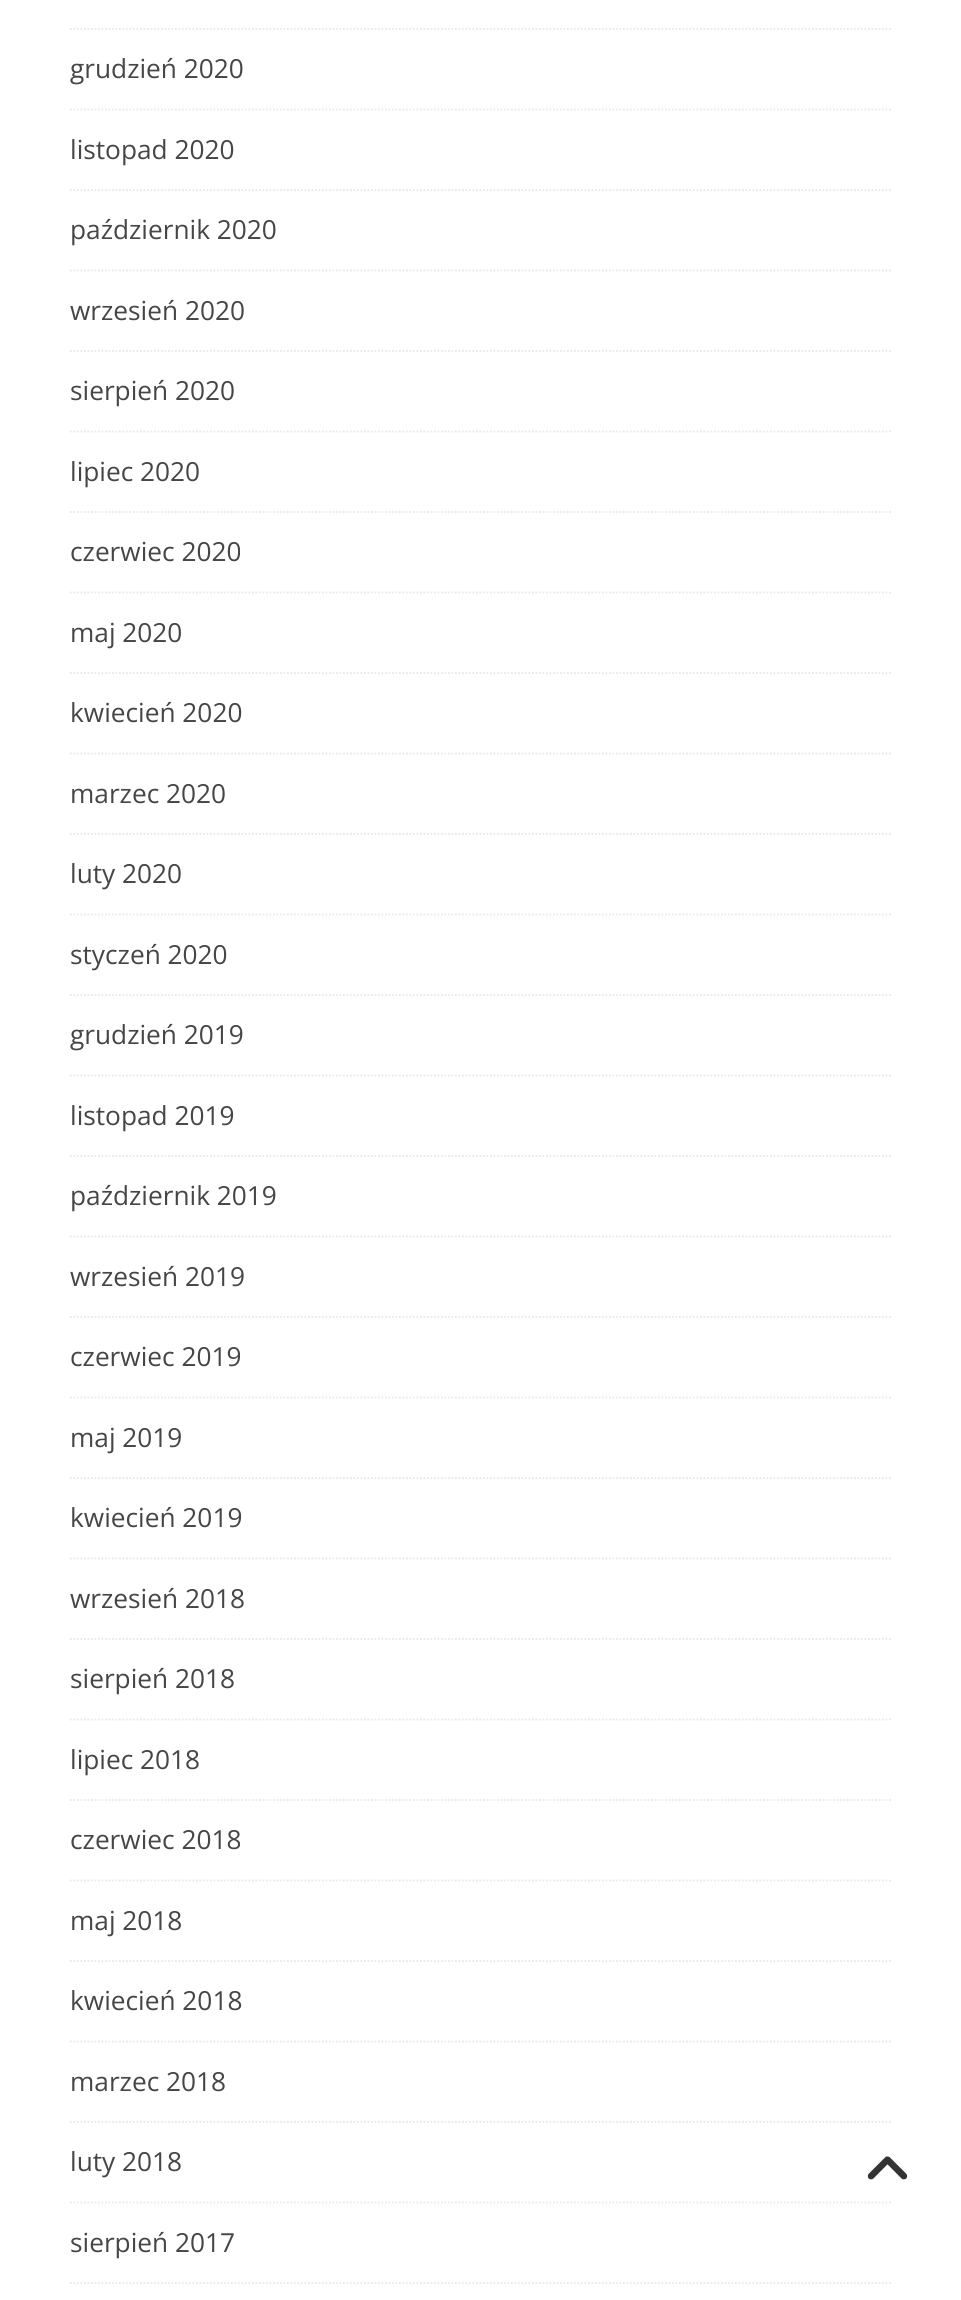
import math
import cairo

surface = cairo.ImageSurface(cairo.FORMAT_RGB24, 961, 2300)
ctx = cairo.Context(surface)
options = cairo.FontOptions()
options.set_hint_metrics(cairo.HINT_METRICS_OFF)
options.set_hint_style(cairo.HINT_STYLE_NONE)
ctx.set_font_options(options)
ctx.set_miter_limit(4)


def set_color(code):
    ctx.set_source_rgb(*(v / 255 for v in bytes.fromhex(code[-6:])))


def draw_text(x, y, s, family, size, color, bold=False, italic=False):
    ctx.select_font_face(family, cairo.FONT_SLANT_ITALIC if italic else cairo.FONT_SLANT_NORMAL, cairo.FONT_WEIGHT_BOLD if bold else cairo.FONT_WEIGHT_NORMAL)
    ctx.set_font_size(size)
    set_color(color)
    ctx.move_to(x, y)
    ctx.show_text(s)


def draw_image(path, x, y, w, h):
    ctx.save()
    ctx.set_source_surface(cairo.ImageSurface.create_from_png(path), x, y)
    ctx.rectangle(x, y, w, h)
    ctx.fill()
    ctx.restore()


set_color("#ffffff")
ctx.paint()
ctx.new_path()
ctx.move_to(70, 29)
ctx.line_to(892.5, 29)
set_color("#e8e8e8")
ctx.set_line_width(1.8)
ctx.set_dash([1.75, 1.75])
ctx.stroke()
ctx.new_path()
ctx.move_to(70, 109.5)
ctx.line_to(892.5, 109.5)
ctx.stroke()
draw_text(70, 78, "grudzień 2020", "Open Sans", 26.25, "#464646")
ctx.new_path()
ctx.move_to(70, 190)
ctx.line_to(892.5, 190)
set_color("#e8e8e8")
ctx.stroke()
draw_text(70, 159, "listopad 2020", "Open Sans", 26.25, "#464646")
ctx.new_path()
ctx.move_to(70, 270.5)
ctx.line_to(892.5, 270.5)
set_color("#e8e8e8")
ctx.stroke()
draw_text(70, 239, "październik 2020", "Open Sans", 26.25, "#464646")
ctx.new_path()
ctx.move_to(70, 351)
ctx.line_to(892.5, 351)
set_color("#e8e8e8")
ctx.stroke()
draw_text(70, 320, "wrzesień 2020", "Open Sans", 26.25, "#464646")
ctx.new_path()
ctx.move_to(70, 431.5)
ctx.line_to(892.5, 431.5)
set_color("#e8e8e8")
ctx.stroke()
draw_text(70, 400, "sierpień 2020", "Open Sans", 26.25, "#464646")
ctx.new_path()
ctx.move_to(70, 512)
ctx.line_to(892.5, 512)
set_color("#e8e8e8")
ctx.stroke()
draw_text(70, 481, "lipiec 2020", "Open Sans", 26.25, "#464646")
ctx.new_path()
ctx.move_to(70, 592.5)
ctx.line_to(892.5, 592.5)
set_color("#e8e8e8")
ctx.stroke()
draw_text(70, 561, "czerwiec 2020", "Open Sans", 26.25, "#464646")
ctx.new_path()
ctx.move_to(70, 673)
ctx.line_to(892.5, 673)
set_color("#e8e8e8")
ctx.stroke()
draw_text(70, 642, "maj 2020", "Open Sans", 26.25, "#464646")
ctx.new_path()
ctx.move_to(70, 753.5)
ctx.line_to(892.5, 753.5)
set_color("#e8e8e8")
ctx.stroke()
draw_text(70, 722, "kwiecień 2020", "Open Sans", 26.25, "#464646")
ctx.new_path()
ctx.move_to(70, 834)
ctx.line_to(892.5, 834)
set_color("#e8e8e8")
ctx.stroke()
draw_text(70, 803, "marzec 2020", "Open Sans", 26.25, "#464646")
ctx.new_path()
ctx.move_to(70, 914.5)
ctx.line_to(892.5, 914.5)
set_color("#e8e8e8")
ctx.stroke()
draw_text(70, 883, "luty 2020", "Open Sans", 26.25, "#464646")
ctx.new_path()
ctx.move_to(70, 995)
ctx.line_to(892.5, 995)
set_color("#e8e8e8")
ctx.stroke()
draw_text(70, 964, "styczeń 2020", "Open Sans", 26.25, "#464646")
ctx.new_path()
ctx.move_to(70, 1075.5)
ctx.line_to(892.5, 1075.5)
set_color("#e8e8e8")
ctx.stroke()
draw_text(70, 1044, "grudzień 2019", "Open Sans", 26.25, "#464646")
ctx.new_path()
ctx.move_to(70, 1156)
ctx.line_to(892.5, 1156)
set_color("#e8e8e8")
ctx.stroke()
draw_text(70, 1125, "listopad 2019", "Open Sans", 26.25, "#464646")
ctx.new_path()
ctx.move_to(70, 1236.5)
ctx.line_to(892.5, 1236.5)
set_color("#e8e8e8")
ctx.stroke()
draw_text(70, 1205, "październik 2019", "Open Sans", 26.25, "#464646")
ctx.new_path()
ctx.move_to(70, 1317)
ctx.line_to(892.5, 1317)
set_color("#e8e8e8")
ctx.stroke()
draw_text(70, 1286, "wrzesień 2019", "Open Sans", 26.25, "#464646")
ctx.new_path()
ctx.move_to(70, 1397.5)
ctx.line_to(892.5, 1397.5)
set_color("#e8e8e8")
ctx.stroke()
draw_text(70, 1366, "czerwiec 2019", "Open Sans", 26.25, "#464646")
ctx.new_path()
ctx.move_to(70, 1478)
ctx.line_to(892.5, 1478)
set_color("#e8e8e8")
ctx.stroke()
draw_text(70, 1447, "maj 2019", "Open Sans", 26.25, "#464646")
ctx.new_path()
ctx.move_to(70, 1558.5)
ctx.line_to(892.5, 1558.5)
set_color("#e8e8e8")
ctx.stroke()
draw_text(70, 1527, "kwiecień 2019", "Open Sans", 26.25, "#464646")
ctx.new_path()
ctx.move_to(70, 1639)
ctx.line_to(892.5, 1639)
set_color("#e8e8e8")
ctx.stroke()
draw_text(70, 1608, "wrzesień 2018", "Open Sans", 26.25, "#464646")
ctx.new_path()
ctx.move_to(70, 1719.5)
ctx.line_to(892.5, 1719.5)
set_color("#e8e8e8")
ctx.stroke()
draw_text(70, 1688, "sierpień 2018", "Open Sans", 26.25, "#464646")
ctx.new_path()
ctx.move_to(70, 1800)
ctx.line_to(892.5, 1800)
set_color("#e8e8e8")
ctx.stroke()
draw_text(70, 1769, "lipiec 2018", "Open Sans", 26.25, "#464646")
ctx.new_path()
ctx.move_to(70, 1880.5)
ctx.line_to(892.5, 1880.5)
set_color("#e8e8e8")
ctx.stroke()
draw_text(70, 1849, "czerwiec 2018", "Open Sans", 26.25, "#464646")
ctx.new_path()
ctx.move_to(70, 1961)
ctx.line_to(892.5, 1961)
set_color("#e8e8e8")
ctx.stroke()
draw_text(70, 1930, "maj 2018", "Open Sans", 26.25, "#464646")
ctx.new_path()
ctx.move_to(70, 2041.5)
ctx.line_to(892.5, 2041.5)
set_color("#e8e8e8")
ctx.stroke()
draw_text(70, 2010, "kwiecień 2018", "Open Sans", 26.25, "#464646")
ctx.new_path()
ctx.move_to(70, 2122)
ctx.line_to(892.5, 2122)
set_color("#e8e8e8")
ctx.stroke()
draw_text(70, 2091, "marzec 2018", "Open Sans", 26.25, "#464646")
ctx.new_path()
ctx.move_to(70, 2202.5)
ctx.line_to(892.5, 2202.5)
set_color("#e8e8e8")
ctx.stroke()
draw_text(70, 2171, "luty 2018", "Open Sans", 26.25, "#464646")
ctx.new_path()
ctx.move_to(70, 2283)
ctx.line_to(892.5, 2283)
set_color("#e8e8e8")
ctx.stroke()
draw_text(70, 2252, "sierpień 2017", "Open Sans", 26.25, "#464646")
draw_image("assets/img1.png", 867, 2156, 41, 24)
surface.write_to_png("output.png")
